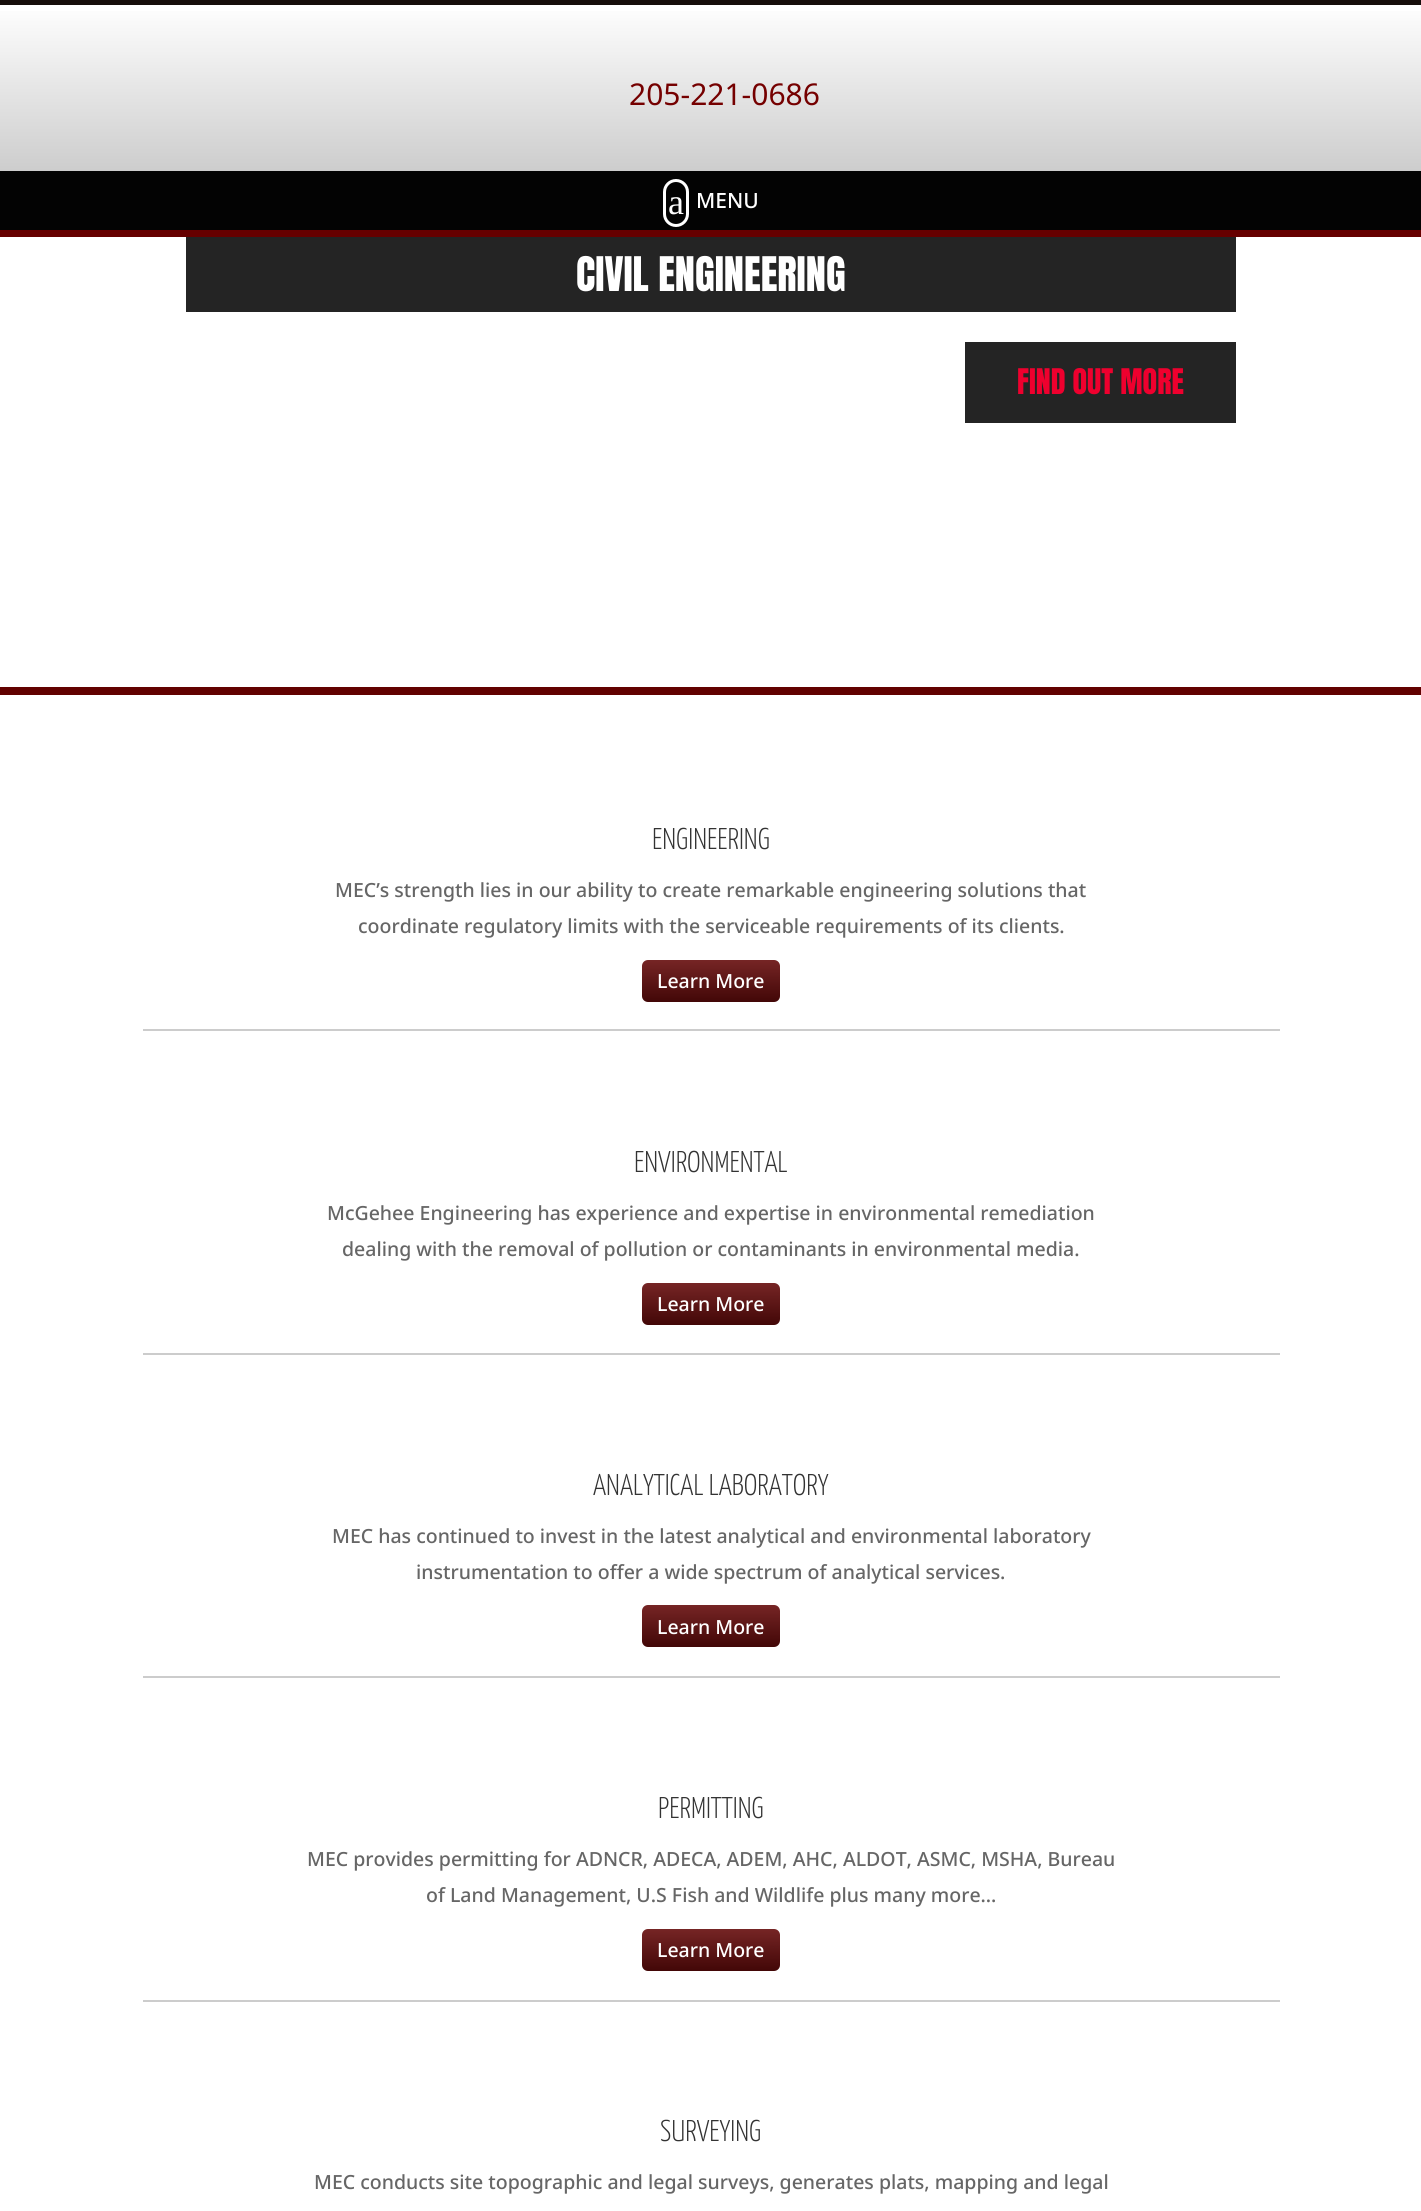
import math
import cairo

surface = cairo.ImageSurface(cairo.FORMAT_RGB24, 1421, 2211)
ctx = cairo.Context(surface)
options = cairo.FontOptions()
options.set_hint_metrics(cairo.HINT_METRICS_OFF)
options.set_hint_style(cairo.HINT_STYLE_NONE)
ctx.set_font_options(options)
ctx.set_miter_limit(4)


def set_color(code):
    ctx.set_source_rgb(*(v / 255 for v in bytes.fromhex(code[-6:])))


def draw_text(x, y, s, family, size, color, bold=False, italic=False):
    ctx.select_font_face(family, cairo.FONT_SLANT_ITALIC if italic else cairo.FONT_SLANT_NORMAL, cairo.FONT_WEIGHT_BOLD if bold else cairo.FONT_WEIGHT_NORMAL)
    ctx.set_font_size(size)
    set_color(color)
    ctx.move_to(x, y)
    ctx.show_text(s)


def fill_rect(x, y, w, h, color):
    set_color(color)
    ctx.rectangle(x, y, w, h)
    ctx.fill()


def rounded_rect(x, y, w, h, r):
    ctx.new_sub_path()
    for i, (u, v) in enumerate([(x + w - r, y + h - r), (x + r, y + h - r), (x + r, y + r), (x + w - r, y + r)]):
        ctx.arc(u, v, r, i * math.pi / 2, (i + 1) * math.pi / 2)
    ctx.close_path()


set_color("#ffffff")
ctx.paint()
gradient = cairo.LinearGradient(711, 4.5, 711, 171)
gradient.add_color_stop_rgba(0.01, 0.996, 0.996, 0.996, 1)
gradient.add_color_stop_rgba(1, 0.804, 0.804, 0.804, 1)
ctx.set_source(gradient)
ctx.rectangle(0, 11, 1421, 160)
ctx.fill()
fill_rect(0, 0, 1421, 5, "#160e0b")
draw_text(629, 105, "205-221-0686", "Noto Sans", 30, "#750000")
fill_rect(0, 171, 1421, 59, "#030303")
fill_rect(0, 230, 1421, 7, "#660000")
rounded_rect(664.5, 180.5, 23, 45, 11.5)
set_color("#ffffff")
ctx.set_line_width(3)
ctx.stroke()
draw_text(668, 214, "a", "Liberation Serif", 36, "#ffffff")
draw_text(696, 208, "MENU", "Noto Sans Medium", 21, "#ffffff")
fill_rect(186, 237, 1050, 75, "#242424")
draw_text(576, 291, "CIVIL ENGINEERING", "Anton", 40.5, "#ffffff")
fill_rect(965, 342, 271, 81, "#242424")
draw_text(1017, 394, "FIND OUT MORE", "Anton", 30, "#ef002e")
fill_rect(0, 687, 1421, 8, "#620100")
fill_rect(143, 1029, 1137, 2, "#cccccc")
draw_text(652, 849, "ENGINEERING", "Yanone Kaffeesatz Light", 30, "#333333")
draw_text(335, 897, "MEC’s strength lies in our ability to create remarkable engineering solutions that", "Noto Sans Medium", 19.5, "#666666")
draw_text(358, 933, "coordinate regulatory limits with the serviceable requirements of its clients.", "Noto Sans Medium", 19.5, "#666666")
gradient = cairo.LinearGradient(711, 960, 711, 1002)
gradient.add_color_stop_rgba(0, 0.463, 0.145, 0.145, 1)
gradient.add_color_stop_rgba(1, 0.259, 0.027, 0.027, 1)
ctx.set_source(gradient)
rounded_rect(642, 960, 138, 42, 6)
ctx.fill()
draw_text(657, 988, "Learn More", "Noto Sans Medium", 19.5, "#ffffff")
fill_rect(143, 1353, 1137, 2, "#cccccc")
draw_text(634, 1172, "ENVIRONMENTAL", "Yanone Kaffeesatz Light", 30, "#333333")
draw_text(327, 1220, "McGehee Engineering has experience and expertise in environmental remediation", "Noto Sans Medium", 19.5, "#666666")
draw_text(342, 1256, "dealing with the removal of pollution or contaminants in environmental media.", "Noto Sans Medium", 19.5, "#666666")
gradient = cairo.LinearGradient(711, 1283, 711, 1325)
gradient.add_color_stop_rgba(0, 0.463, 0.145, 0.145, 1)
gradient.add_color_stop_rgba(1, 0.259, 0.027, 0.027, 1)
ctx.set_source(gradient)
rounded_rect(642, 1283, 138, 42, 6)
ctx.fill()
draw_text(657, 1311, "Learn More", "Noto Sans Medium", 19.5, "#ffffff")
fill_rect(143, 1676, 1137, 2, "#cccccc")
draw_text(593, 1495, "ANALYTICAL LABORATORY", "Yanone Kaffeesatz Light", 30, "#333333")
draw_text(332, 1543, "MEC has continued to invest in the latest analytical and environmental laboratory", "Noto Sans Medium", 19.5, "#666666")
draw_text(416, 1579, "instrumentation to offer a wide spectrum of analytical services.", "Noto Sans Medium", 19.5, "#666666")
gradient = cairo.LinearGradient(711, 1605, 711, 1647)
gradient.add_color_stop_rgba(0, 0.463, 0.145, 0.145, 1)
gradient.add_color_stop_rgba(1, 0.259, 0.027, 0.027, 1)
ctx.set_source(gradient)
rounded_rect(642, 1605, 138, 42, 6)
ctx.fill()
draw_text(657, 1634, "Learn More", "Noto Sans Medium", 19.5, "#ffffff")
fill_rect(143, 2000, 1137, 2, "#cccccc")
draw_text(658, 1818, "PERMITTING", "Yanone Kaffeesatz Light", 30, "#333333")
draw_text(307, 1866, "MEC provides permitting for ADNCR, ADECA, ADEM, AHC, ALDOT, ASMC, MSHA, Bureau", "Noto Sans Medium", 19.5, "#666666")
draw_text(426, 1902, "of Land Management, U.S Fish and Wildlife plus many more…", "Noto Sans Medium", 19.5, "#666666")
gradient = cairo.LinearGradient(711, 1929, 711, 1971)
gradient.add_color_stop_rgba(0, 0.463, 0.145, 0.145, 1)
gradient.add_color_stop_rgba(1, 0.259, 0.027, 0.027, 1)
ctx.set_source(gradient)
rounded_rect(642, 1929, 138, 42, 6)
ctx.fill()
draw_text(657, 1957, "Learn More", "Noto Sans Medium", 19.5, "#ffffff")
draw_text(660, 2141, "SURVEYING", "Yanone Kaffeesatz Light", 30, "#333333")
draw_text(314, 2189, "MEC conducts site topographic and legal surveys, generates plats, mapping and legal", "Noto Sans Medium", 19.5, "#666666")
surface.write_to_png("output.png")
